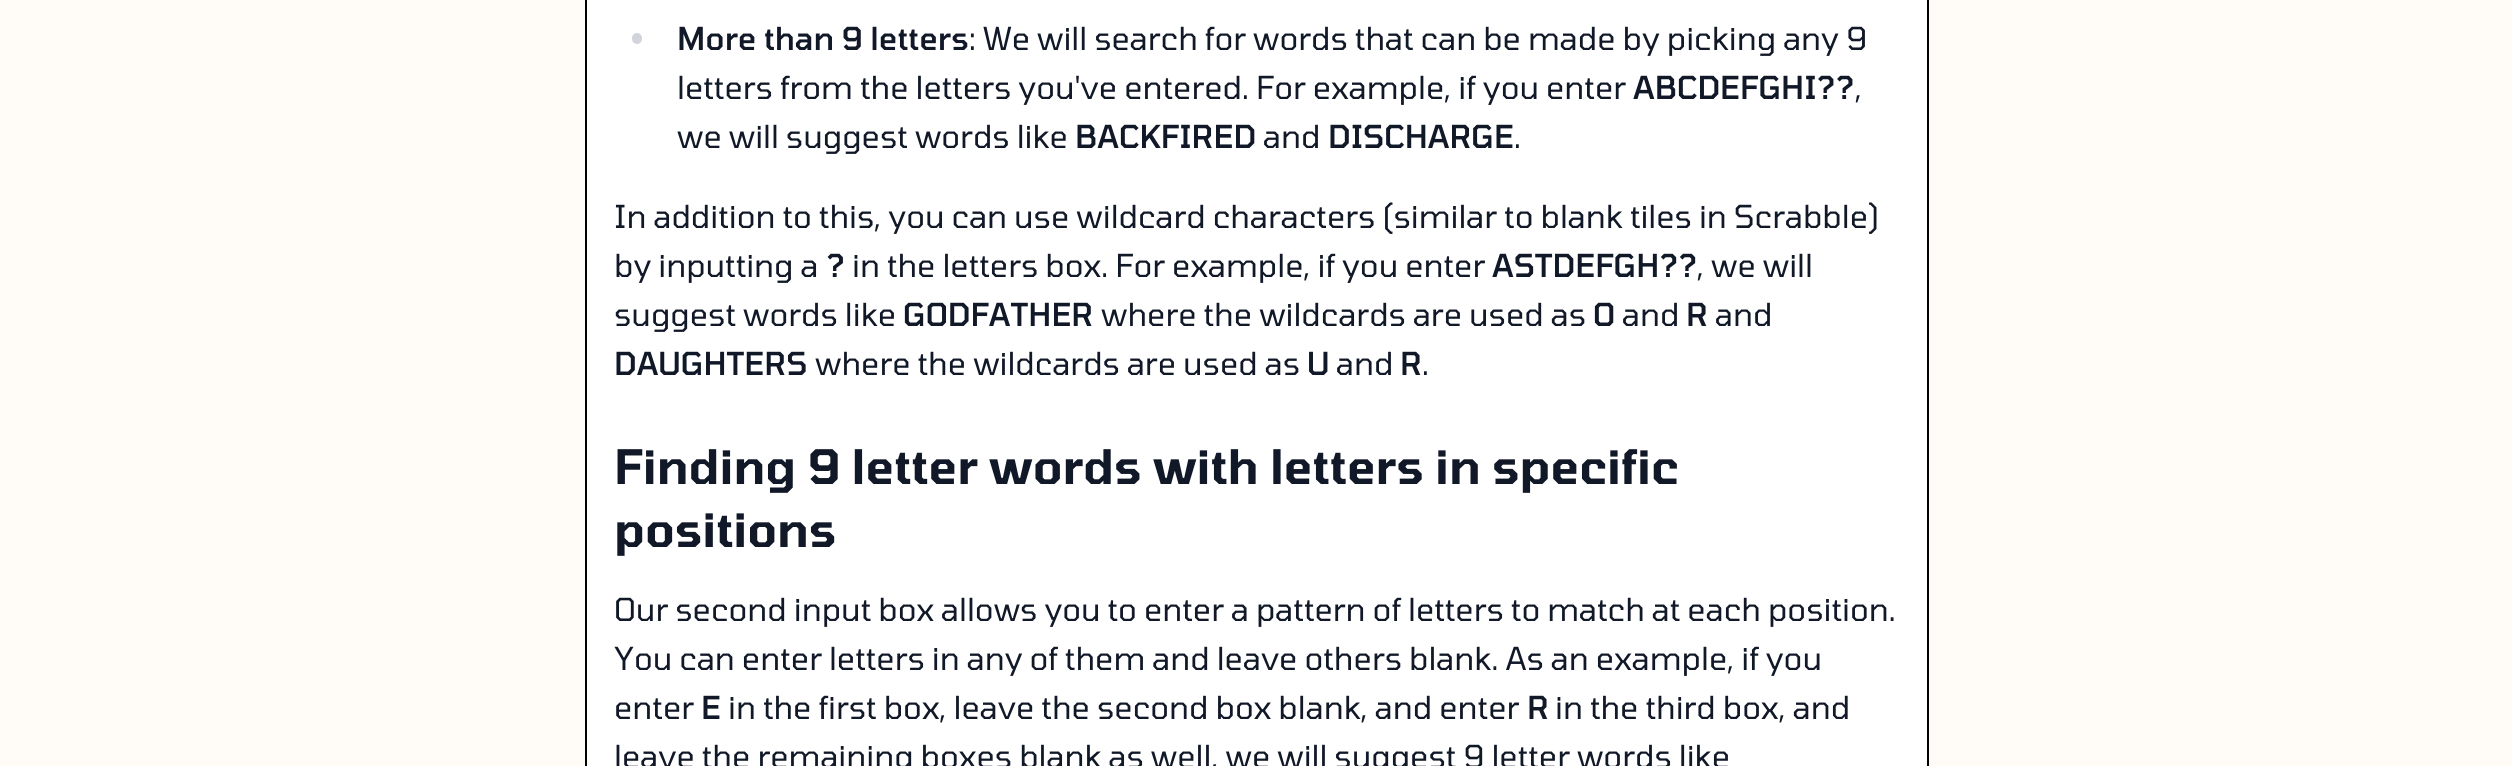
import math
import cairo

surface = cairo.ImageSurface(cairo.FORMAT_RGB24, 2512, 766)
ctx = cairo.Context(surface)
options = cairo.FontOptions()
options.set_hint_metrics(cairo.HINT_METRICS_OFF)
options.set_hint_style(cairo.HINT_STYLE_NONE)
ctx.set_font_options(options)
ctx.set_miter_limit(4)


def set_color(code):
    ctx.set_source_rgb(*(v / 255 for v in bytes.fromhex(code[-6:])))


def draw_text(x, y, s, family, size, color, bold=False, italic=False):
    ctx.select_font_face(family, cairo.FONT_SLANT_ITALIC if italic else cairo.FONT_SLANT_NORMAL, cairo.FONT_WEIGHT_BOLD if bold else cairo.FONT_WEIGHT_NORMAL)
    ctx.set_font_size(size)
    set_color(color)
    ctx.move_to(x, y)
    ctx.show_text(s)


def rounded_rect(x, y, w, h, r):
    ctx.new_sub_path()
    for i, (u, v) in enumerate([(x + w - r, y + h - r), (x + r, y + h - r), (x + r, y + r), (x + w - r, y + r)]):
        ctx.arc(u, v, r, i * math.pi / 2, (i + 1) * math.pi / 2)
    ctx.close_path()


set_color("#fffbf6")
ctx.paint()
set_color("#ffffff")
ctx.rectangle(586, -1, 1342, 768)
ctx.fill_preserve()
set_color("#000000")
ctx.stroke()
set_color("#d1d5db")
rounded_rect(632, 33, 10, 11, 5)
ctx.fill()
draw_text(677, 50, "More than 9 letters", "Tomorrow Medium", 31.5, "#111827")
draw_text(969, 50, ": We will search for words that can be made by picking any 9", "Tomorrow", 31.5, "#111827")
draw_text(677, 99, "letters from the letters you've entered. For example, if you enter", "Tomorrow", 31.5, "#111827")
draw_text(1633, 99, "ABCDEFGHI??", "Tomorrow Medium", 31.5, "#111827")
draw_text(1855, 99, ",", "Tomorrow", 31.5, "#111827")
draw_text(677, 148, "we will suggest words like", "Tomorrow", 31.5, "#111827")
draw_text(1075, 148, "BACKFIRED", "Tomorrow Medium", 31.5, "#111827")
draw_text(1263, 148, "and", "Tomorrow", 31.5, "#111827")
draw_text(1328, 148, "DISCHARGE", "Tomorrow Medium", 31.5, "#111827")
draw_text(1514, 148, ".", "Tomorrow", 31.5, "#111827")
draw_text(614, 228, "In addition to this, you can use wildcard characters (similar to blank tiles in Scrabble)", "Tomorrow", 31.5, "#111827")
draw_text(614, 277, "by inputting a", "Tomorrow", 31.5, "#111827")
draw_text(826, 277, "?", "Tomorrow Medium", 31.5, "#111827")
draw_text(852, 277, "in the letters box. For example, if you enter", "Tomorrow", 31.5, "#111827")
draw_text(1492, 277, "ASTDEFGH??", "Tomorrow Medium", 31.5, "#111827")
draw_text(1697, 277, ", we will", "Tomorrow", 31.5, "#111827")
draw_text(614, 326, "suggest words like", "Tomorrow", 31.5, "#111827")
draw_text(903, 326, "GODFATHER", "Tomorrow Medium", 31.5, "#111827")
draw_text(1101, 326, "where the wildcards are used as", "Tomorrow", 31.5, "#111827")
draw_text(1593, 326, "O", "Tomorrow Medium", 31.5, "#111827")
draw_text(1622, 326, "and", "Tomorrow", 31.5, "#111827")
draw_text(1686, 326, "R", "Tomorrow Medium", 31.5, "#111827")
draw_text(1715, 326, "and", "Tomorrow", 31.5, "#111827")
draw_text(614, 375, "DAUGHTERS", "Tomorrow Medium", 31.5, "#111827")
draw_text(815, 375, "where the wildcards are used as", "Tomorrow", 31.5, "#111827")
draw_text(1307, 375, "U", "Tomorrow Medium", 31.5, "#111827")
draw_text(1336, 375, "and", "Tomorrow", 31.5, "#111827")
draw_text(1400, 375, "R", "Tomorrow Medium", 31.5, "#111827")
draw_text(1422, 375, ".", "Tomorrow", 31.5, "#111827")
draw_text(614, 484, "Finding 9 letter words with letters in specific", "Tomorrow SemiBold", 47.25, "#111827")
draw_text(614, 547, "positions", "Tomorrow SemiBold", 47.25, "#111827")
draw_text(614, 621, "Our second input box allows you to enter a pattern of letters to match at each position.", "Tomorrow", 31.5, "#111827")
draw_text(614, 670, "You can enter letters in any of them and leave others blank. As an example, if you", "Tomorrow", 31.5, "#111827")
draw_text(614, 719, "enter", "Tomorrow", 31.5, "#111827")
draw_text(701, 719, "E", "Tomorrow Medium", 31.5, "#111827")
draw_text(728, 719, "in the first box, leave the second box blank, and enter", "Tomorrow", 31.5, "#111827")
draw_text(1527, 719, "R", "Tomorrow Medium", 31.5, "#111827")
draw_text(1555, 719, "in the third box, and", "Tomorrow", 31.5, "#111827")
draw_text(614, 768, "leave the remaining boxes blank as well, we will suggest 9 letter words like", "Tomorrow", 31.5, "#111827")
surface.write_to_png("output.png")
